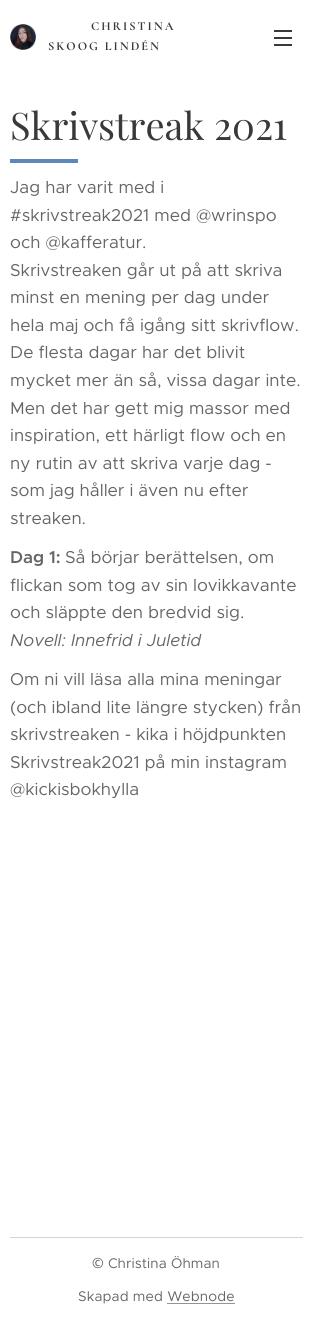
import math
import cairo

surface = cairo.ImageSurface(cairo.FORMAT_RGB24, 313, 1322)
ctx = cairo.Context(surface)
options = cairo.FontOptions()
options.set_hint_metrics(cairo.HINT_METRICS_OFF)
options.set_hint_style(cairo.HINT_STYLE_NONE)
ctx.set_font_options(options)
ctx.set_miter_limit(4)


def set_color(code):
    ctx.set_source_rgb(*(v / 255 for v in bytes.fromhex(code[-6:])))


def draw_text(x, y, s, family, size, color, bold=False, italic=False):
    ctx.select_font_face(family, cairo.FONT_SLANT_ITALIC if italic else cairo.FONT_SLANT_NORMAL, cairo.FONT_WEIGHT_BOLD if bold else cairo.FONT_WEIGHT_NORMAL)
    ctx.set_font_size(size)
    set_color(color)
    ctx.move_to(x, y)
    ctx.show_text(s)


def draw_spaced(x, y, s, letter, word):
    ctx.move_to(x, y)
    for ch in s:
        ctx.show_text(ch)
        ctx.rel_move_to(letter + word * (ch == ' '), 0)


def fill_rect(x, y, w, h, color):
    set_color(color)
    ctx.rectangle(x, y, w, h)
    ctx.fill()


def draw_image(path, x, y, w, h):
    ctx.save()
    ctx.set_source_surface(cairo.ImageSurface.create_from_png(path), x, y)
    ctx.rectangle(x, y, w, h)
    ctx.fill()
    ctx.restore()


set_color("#ffffff")
ctx.paint()
draw_image("assets/img1.png", 10, 24, 26, 26)
ctx.select_font_face("Cormorant", cairo.FONT_SLANT_NORMAL, cairo.FONT_WEIGHT_BOLD)
ctx.set_font_size(12.25)
set_color("#393939")
draw_spaced(91, 30, "CHRISTINA", 2, 0)
draw_spaced(48, 50, "SKOOG LINDÉN", 2, 0)
fill_rect(274, 37, 18, 2, "#393939")
fill_rect(274, 30, 18, 2, "#393939")
fill_rect(274, 44, 18, 2, "#393939")
draw_text(10, 140, "Skrivstreak 2021", "Playfair Display", 38, "#393939")
fill_rect(10, 159, 68, 4, "#6087b9")
draw_text(10, 193, "Jag har varit med i", "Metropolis", 17.25, "#666666")
draw_text(10, 221, "#skrivstreak2021 med @wrinspo", "Metropolis", 17.25, "#666666")
draw_text(10, 248, "och @kafferatur.", "Metropolis", 17.25, "#666666")
draw_text(10, 276, "Skrivstreaken går ut på att skriva", "Metropolis", 17.25, "#666666")
draw_text(10, 303, "minst en mening per dag under", "Metropolis", 17.25, "#666666")
draw_text(10, 331, "hela maj och få igång sitt skrivflow.", "Metropolis", 17.25, "#666666")
draw_text(10, 358, "De flesta dagar har det blivit", "Metropolis", 17.25, "#666666")
draw_text(10, 386, "mycket mer än så, vissa dagar inte.", "Metropolis", 17.25, "#666666")
draw_text(10, 414, "Men det har gett mig massor med", "Metropolis", 17.25, "#666666")
draw_text(10, 441, "inspiration, ett härligt flow och en", "Metropolis", 17.25, "#666666")
draw_text(10, 469, "ny rutin av att skriva varje dag -", "Metropolis", 17.25, "#666666")
draw_text(10, 496, "som jag håller i även nu efter", "Metropolis", 17.25, "#666666")
draw_text(10, 524, "streaken.", "Metropolis", 17.25, "#666666")
draw_text(10, 563, "Dag 1:", "Metropolis SemiBold", 17.25, "#666666")
draw_text(65, 563, "Så börjar berättelsen, om", "Metropolis", 17.25, "#666666")
draw_text(10, 591, "flickan som tog av sin lovikkavante", "Metropolis", 17.25, "#666666")
draw_text(10, 618, "och släppte den bredvid sig.", "Metropolis", 17.25, "#666666")
draw_text(10, 646, "Novell: Innefrid i Juletid", "Metropolis", 17.25, "#666666", italic=True)
draw_text(10, 685, "Om ni vill läsa alla mina meningar", "Metropolis", 17.25, "#666666")
draw_text(10, 713, "(och ibland lite längre stycken) från", "Metropolis", 17.25, "#666666")
draw_text(10, 740, "skrivstreaken - kika i höjdpunkten", "Metropolis", 17.25, "#666666")
draw_text(10, 768, "Skrivstreak2021 på min instagram", "Metropolis", 17.25, "#666666")
draw_text(10, 795, "@kickisbokhylla", "Metropolis", 17.25, "#666666")
fill_rect(10, 1237, 293, 1, "#d4d4d4")
ctx.select_font_face("Noto Sans")
ctx.set_font_size(14)
set_color("#666666")
draw_spaced(92, 1268, "©", 0.1, 0)
ctx.select_font_face("Metropolis")
draw_spaced(108, 1268, "Christina Öhman", 0.1, 0)
draw_spaced(78, 1301, "Skapad med Webnode", 0.1, 0)
fill_rect(167, 1303, 68, 1, "#949494")
surface.write_to_png("output.png")
